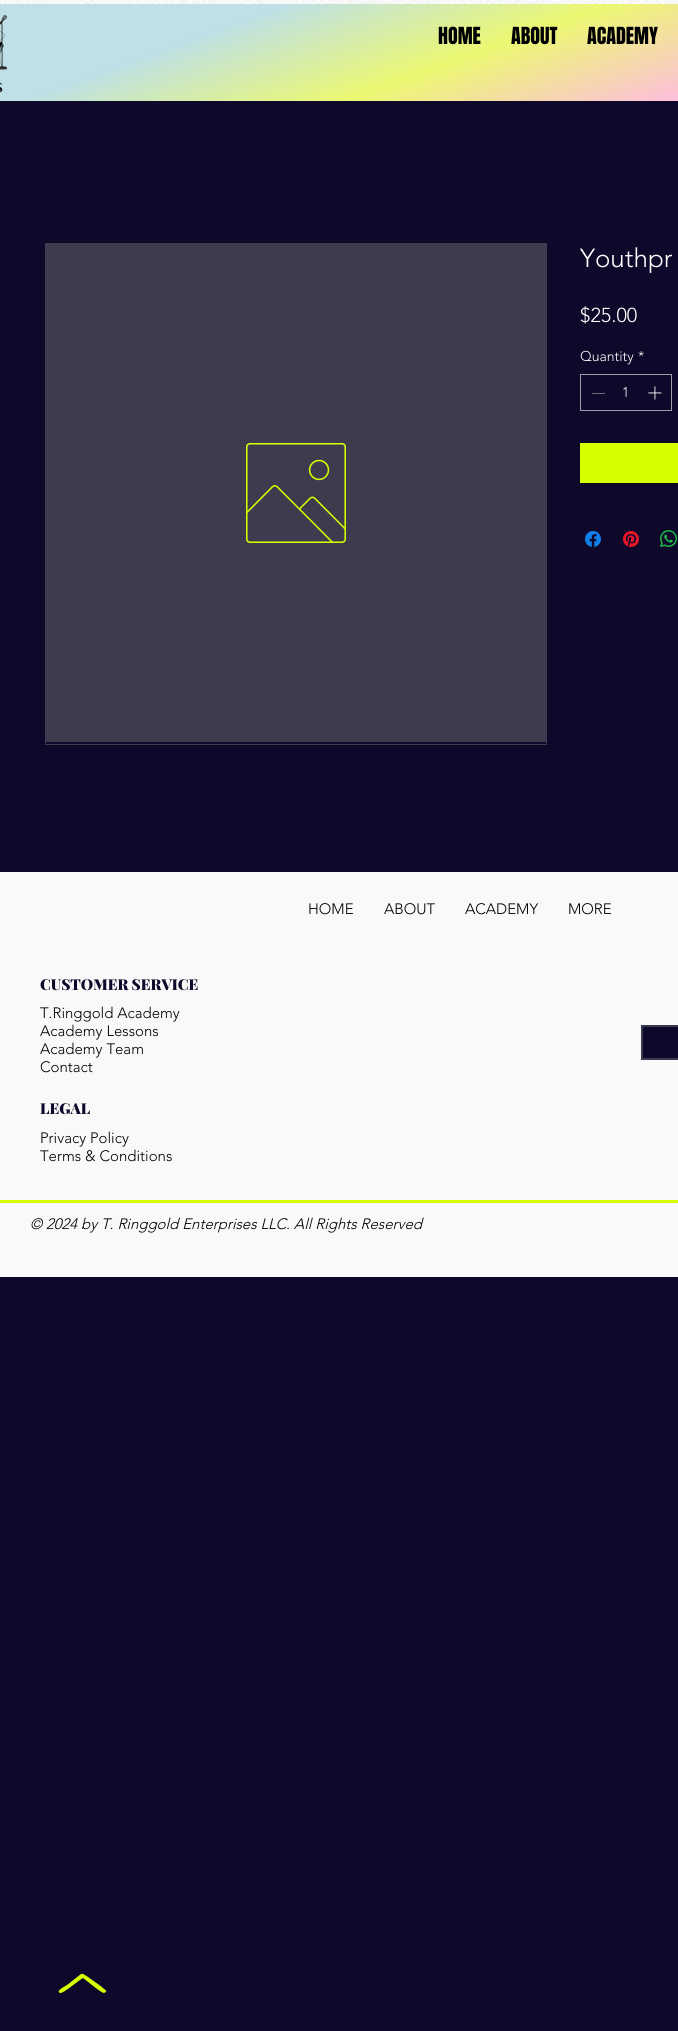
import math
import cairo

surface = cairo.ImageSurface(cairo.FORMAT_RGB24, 678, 2031)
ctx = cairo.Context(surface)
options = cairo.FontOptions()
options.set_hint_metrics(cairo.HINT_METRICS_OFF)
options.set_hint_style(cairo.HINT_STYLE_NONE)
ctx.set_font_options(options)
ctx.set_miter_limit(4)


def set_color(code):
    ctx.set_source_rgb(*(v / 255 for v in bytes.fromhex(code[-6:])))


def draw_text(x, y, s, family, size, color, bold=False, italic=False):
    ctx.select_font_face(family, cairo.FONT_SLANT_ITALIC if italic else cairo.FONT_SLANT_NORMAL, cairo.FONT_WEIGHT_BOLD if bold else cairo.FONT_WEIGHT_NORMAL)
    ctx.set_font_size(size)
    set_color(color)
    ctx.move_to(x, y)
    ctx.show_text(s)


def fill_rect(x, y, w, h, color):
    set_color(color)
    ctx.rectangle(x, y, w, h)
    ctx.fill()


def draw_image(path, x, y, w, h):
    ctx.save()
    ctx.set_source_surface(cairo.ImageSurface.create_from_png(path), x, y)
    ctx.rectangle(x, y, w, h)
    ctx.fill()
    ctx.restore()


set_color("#0e092b")
ctx.paint()
fill_rect(0, 0, 678, 4, "#ffffff")
draw_image("assets/img1.png", 0, 0, 678, 4)
gradient = cairo.LinearGradient(563, 253, 417, -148)
gradient.add_color_stop_rgba(0.22, 1, 0.725, 0.898, 1)
gradient.add_color_stop_rgba(0.51, 0.925, 0.973, 0.447, 1)
gradient.add_color_stop_rgba(0.77, 0.745, 0.878, 0.902, 1)
ctx.set_source(gradient)
ctx.rectangle(0, 4, 678, 97)
ctx.fill()
draw_image("assets/img2.png", 0, 15, 8, 78)
draw_text(438, 44, "HOME", "Anton", 20, "#000000")
draw_text(511, 44, "ABOUT", "Anton", 20, "#000000")
draw_text(587, 44, "ACADEMY", "Anton", 20, "#000000")
ctx.rectangle(45.5, 243.5, 501, 501)
set_color("#3d3b4d")
ctx.set_line_width(1)
ctx.stroke()
fill_rect(46, 244, 500, 498, "#3d3b4d")
draw_image("assets/img3.png", 246, 443, 100, 100)
draw_text(580, 267, "Youthpr", "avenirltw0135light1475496 Light", 26, "#ffffff")
draw_text(580, 322, "$25.00", "avenirltw0135light1475496 Light", 20, "#ffffff")
draw_text(580, 361, "Quantity", "avenirltw0135light1475496 Light", 14, "#ffffff")
draw_text(638, 361, "*", "avenirltw0135light1475496 Light", 14, "#ffffff")
ctx.rectangle(580.5, 374.5, 91, 36)
set_color("#9f9daa")
ctx.stroke()
fill_rect(592, 393, 13, 1, "#6b6879")
draw_text(622, 397, "1", "avenirltw0135light1475496 Light", 14, "#ffffff")
draw_image("assets/img4.png", 648, 386, 14, 14)
fill_rect(580, 443, 98, 40, "#d6ff00")
draw_image("assets/img5.png", 585, 531, 16, 16)
draw_image("assets/img6.png", 623, 531, 16, 16)
draw_image("assets/img7.png", 660, 530, 17, 17)
fill_rect(0, 872, 678, 405, "#f9f9f9")
draw_text(308, 914, "HOME", "avenirltw0135light1475496 Light", 15, "#000000")
draw_text(384, 914, "ABOUT", "avenirltw0135light1475496 Light", 15, "#000000")
draw_text(465, 914, "ACADEMY", "avenirltw0135light1475496 Light", 15, "#000000")
draw_text(568, 914, "MORE", "avenirltw0135light1475496 Light", 15, "#000000")
draw_text(40, 990, "CUSTOMER SERVICE", "Playfair Display Black", 15, "#0e092b")
draw_text(40, 1018, "T.Ringgold Academy", "avenirltw0135light1475496 Light", 15, "#000000")
draw_text(40, 1036, "Academy Lessons", "avenirltw0135light1475496 Light", 15, "#000000")
draw_text(40, 1054, "Academy Team", "avenirltw0135light1475496 Light", 15, "#000000")
draw_text(40, 1072, "Contact", "avenirltw0135light1475496 Light", 15, "#000000")
set_color("#0e092b")
ctx.rectangle(642, 1026, 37, 33)
ctx.fill_preserve()
set_color("#373b4d")
ctx.set_line_width(2)
ctx.stroke()
draw_text(40, 1114, "LEGAL", "Playfair Display Black", 15, "#0e092b")
draw_text(40, 1143, "Privacy Policy", "avenirltw0135light1475496 Light", 15, "#000000")
draw_text(40, 1161, "Terms & Conditions", "avenirltw0135light1475496 Light", 15, "#000000")
fill_rect(0, 1200, 678, 3, "#d6ff00")
draw_text(30, 1229, "© 2024 by T. Ringgold Enterprises LLC. All Rights Reserved", "avenirltw0135light1475496 Light", 15, "#000000", italic=True)
set_color("#d6ff00")
ctx.new_path()
ctx.move_to(104, 1993)
ctx.curve_to(101, 1993, 86, 1980, 83, 1978)
ctx.curve_to(79, 1980, 63, 1994, 60, 1993)
ctx.curve_to(56, 1991, 62, 1988, 67, 1985)
ctx.line_to(81, 1974)
ctx.curve_to(83, 1973, 86, 1976, 88, 1977)
ctx.line_to(102, 1987)
ctx.curve_to(102, 1988, 107, 1990, 106, 1992)
ctx.close_path()
ctx.fill()
surface.write_to_png("output.png")
